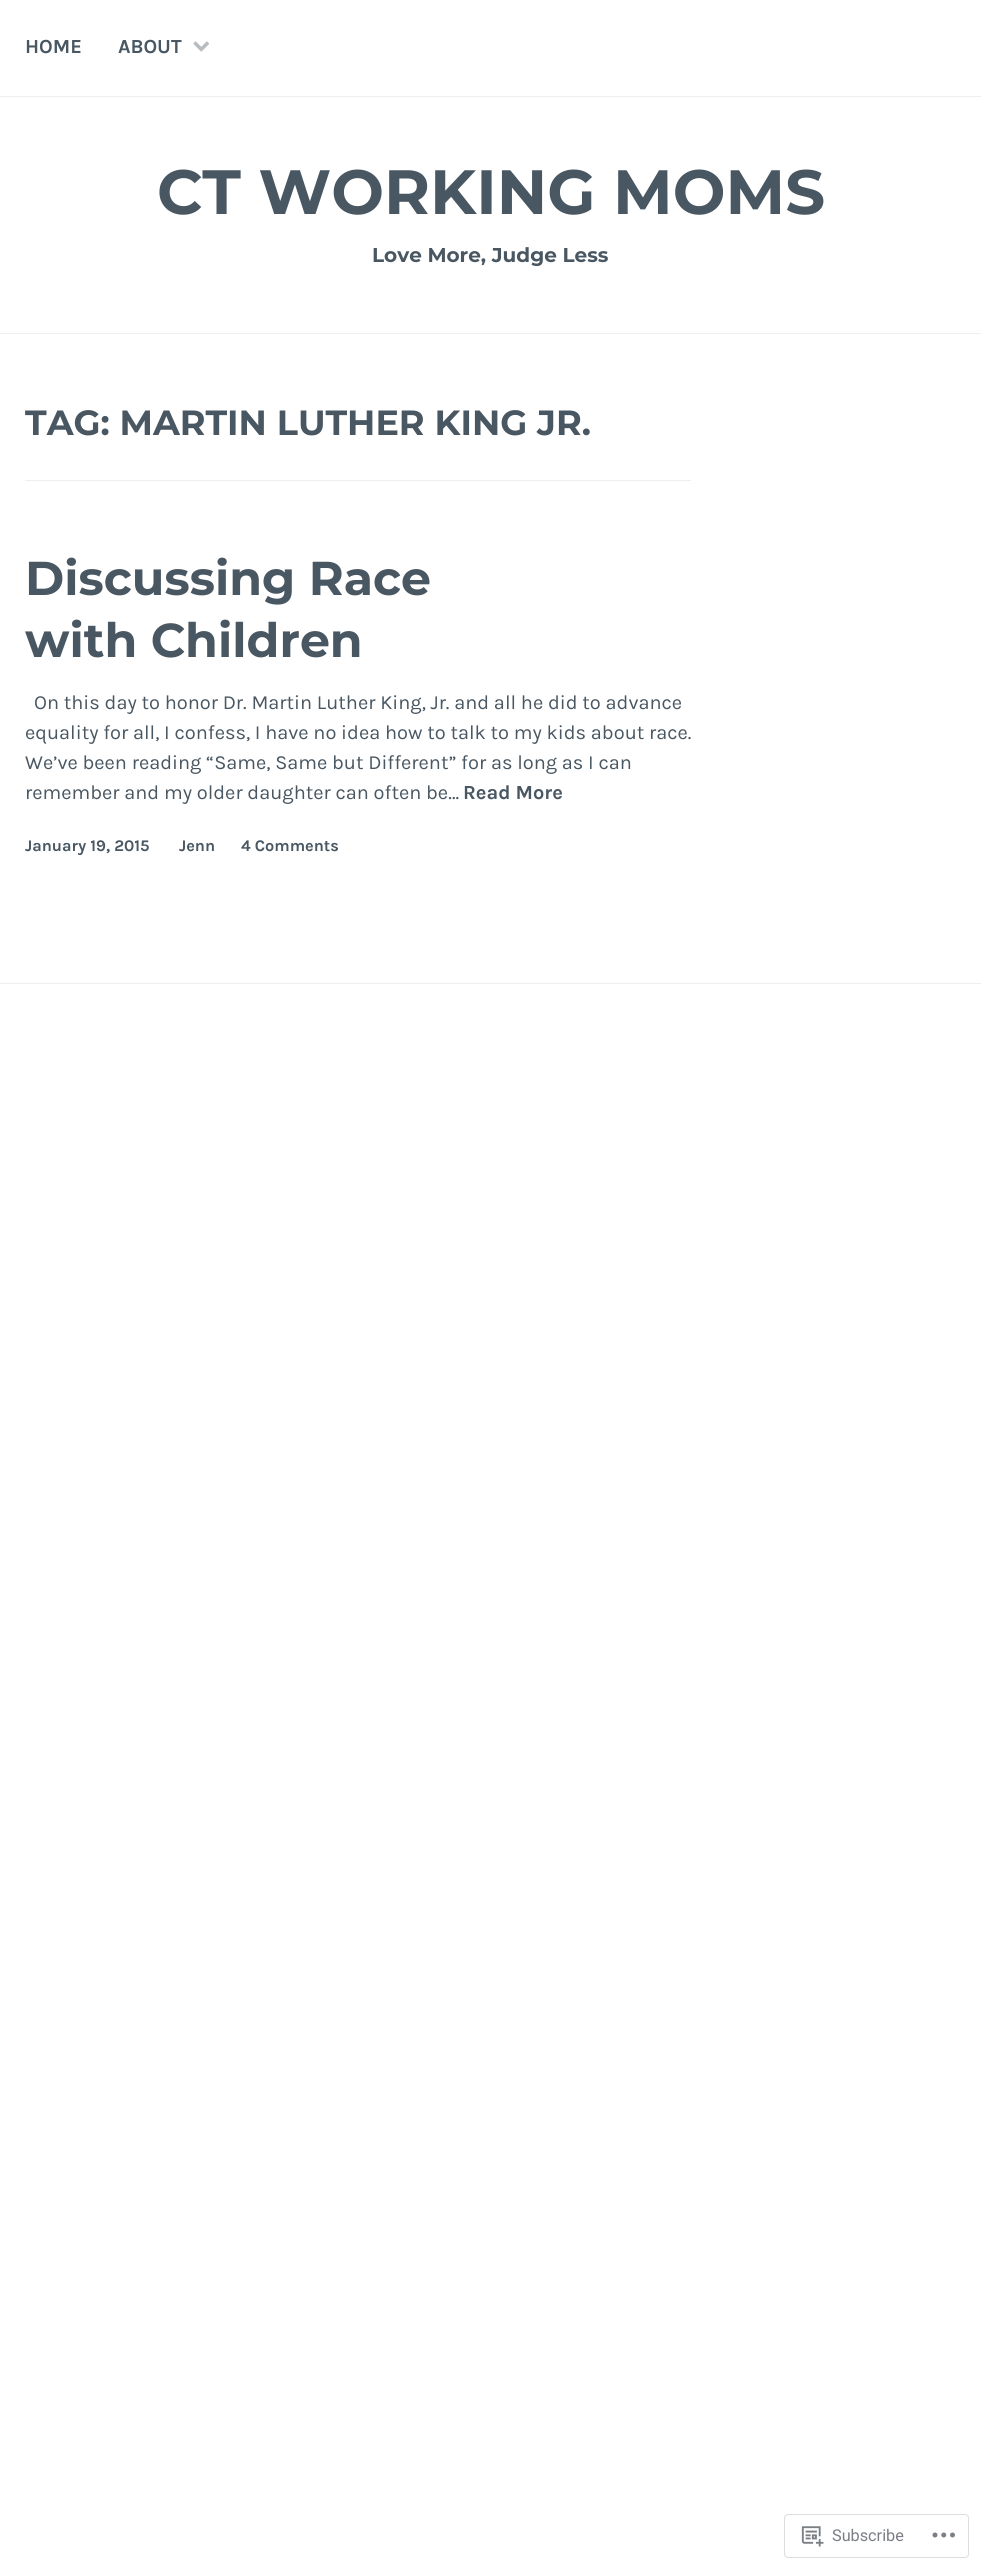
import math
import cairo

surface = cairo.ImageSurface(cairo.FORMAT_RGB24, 981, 2570)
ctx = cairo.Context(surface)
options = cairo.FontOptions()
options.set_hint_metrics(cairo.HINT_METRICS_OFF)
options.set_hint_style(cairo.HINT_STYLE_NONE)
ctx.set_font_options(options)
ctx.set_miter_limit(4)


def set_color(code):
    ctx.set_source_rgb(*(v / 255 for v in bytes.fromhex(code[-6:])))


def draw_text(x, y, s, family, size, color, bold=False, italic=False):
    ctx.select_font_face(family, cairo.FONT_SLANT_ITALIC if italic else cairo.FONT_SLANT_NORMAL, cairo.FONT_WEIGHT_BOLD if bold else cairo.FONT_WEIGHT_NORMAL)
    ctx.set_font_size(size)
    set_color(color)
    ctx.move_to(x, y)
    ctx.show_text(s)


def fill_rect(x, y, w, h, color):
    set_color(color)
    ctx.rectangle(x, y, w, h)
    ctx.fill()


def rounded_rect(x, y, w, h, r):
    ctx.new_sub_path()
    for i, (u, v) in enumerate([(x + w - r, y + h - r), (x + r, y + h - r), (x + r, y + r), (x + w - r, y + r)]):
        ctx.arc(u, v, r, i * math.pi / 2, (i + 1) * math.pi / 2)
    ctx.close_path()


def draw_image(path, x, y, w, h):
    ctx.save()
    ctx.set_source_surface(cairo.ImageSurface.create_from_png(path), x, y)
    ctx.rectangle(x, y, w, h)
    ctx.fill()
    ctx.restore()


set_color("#ffffff")
ctx.paint()
fill_rect(0, 96, 981, 1, "#eeeeee")
draw_text(25, 53, "HOME", "Karla", 20, "#495762", bold=True)
draw_text(118, 53, "ABOUT", "Karla", 20, "#495762", bold=True)
draw_image("assets/img1.png", 193, 41, 16, 11)
draw_text(157, 214, "CT WORKING MOMS", "Montserrat", 62.5, "#495762", bold=True)
draw_text(372, 262, "Love More, Judge Less", "Montserrat", 20, "#495762", bold=True)
fill_rect(0, 333, 981, 1, "#eeeeee")
fill_rect(25, 480, 666, 1, "#eeeeee")
draw_text(25, 435, "TAG: MARTIN LUTHER KING JR.", "Montserrat", 35, "#495762", bold=True)
draw_text(25, 595, "Discussing Race", "Montserrat", 47.5, "#495762", bold=True)
draw_text(25, 657, "with Children", "Montserrat", 47.5, "#495762", bold=True)
draw_text(34, 709, "On this day to honor Dr. Martin Luther King, Jr. and all he did to advance", "Karla", 20, "#495762")
draw_text(25, 739, "equality for all, I confess, I have no idea how to talk to my kids about race.", "Karla", 20, "#495762")
draw_text(25, 769, "We’ve been reading “Same, Same but Different” for as long as I can", "Karla", 20, "#495762")
draw_text(25, 799, "remember and my older daughter can often be…", "Karla", 20, "#495762")
draw_text(463, 799, "Read More", "Karla", 20, "#495762", bold=True)
draw_text(25, 851, "January 19, 2015", "Karla", 16.25, "#495762", bold=True)
draw_text(179, 851, "Jenn", "Karla", 16.25, "#495762", bold=True)
draw_text(241, 851, "4 Comments", "Karla", 16.25, "#495762", bold=True)
fill_rect(0, 983, 981, 1, "#eeeeee")
rounded_rect(784.5, 2514.5, 184, 43, 3.5)
set_color("#dddddf")
ctx.set_line_width(1)
ctx.stroke()
draw_image("assets/img2.png", 801, 2526, 23, 21)
draw_text(832, 2541, "Subscribe", "Roboto", 16.25, "#7b7f85")
draw_image("assets/img3.png", 932, 2532, 23, 6)
surface.write_to_png("output.png")
